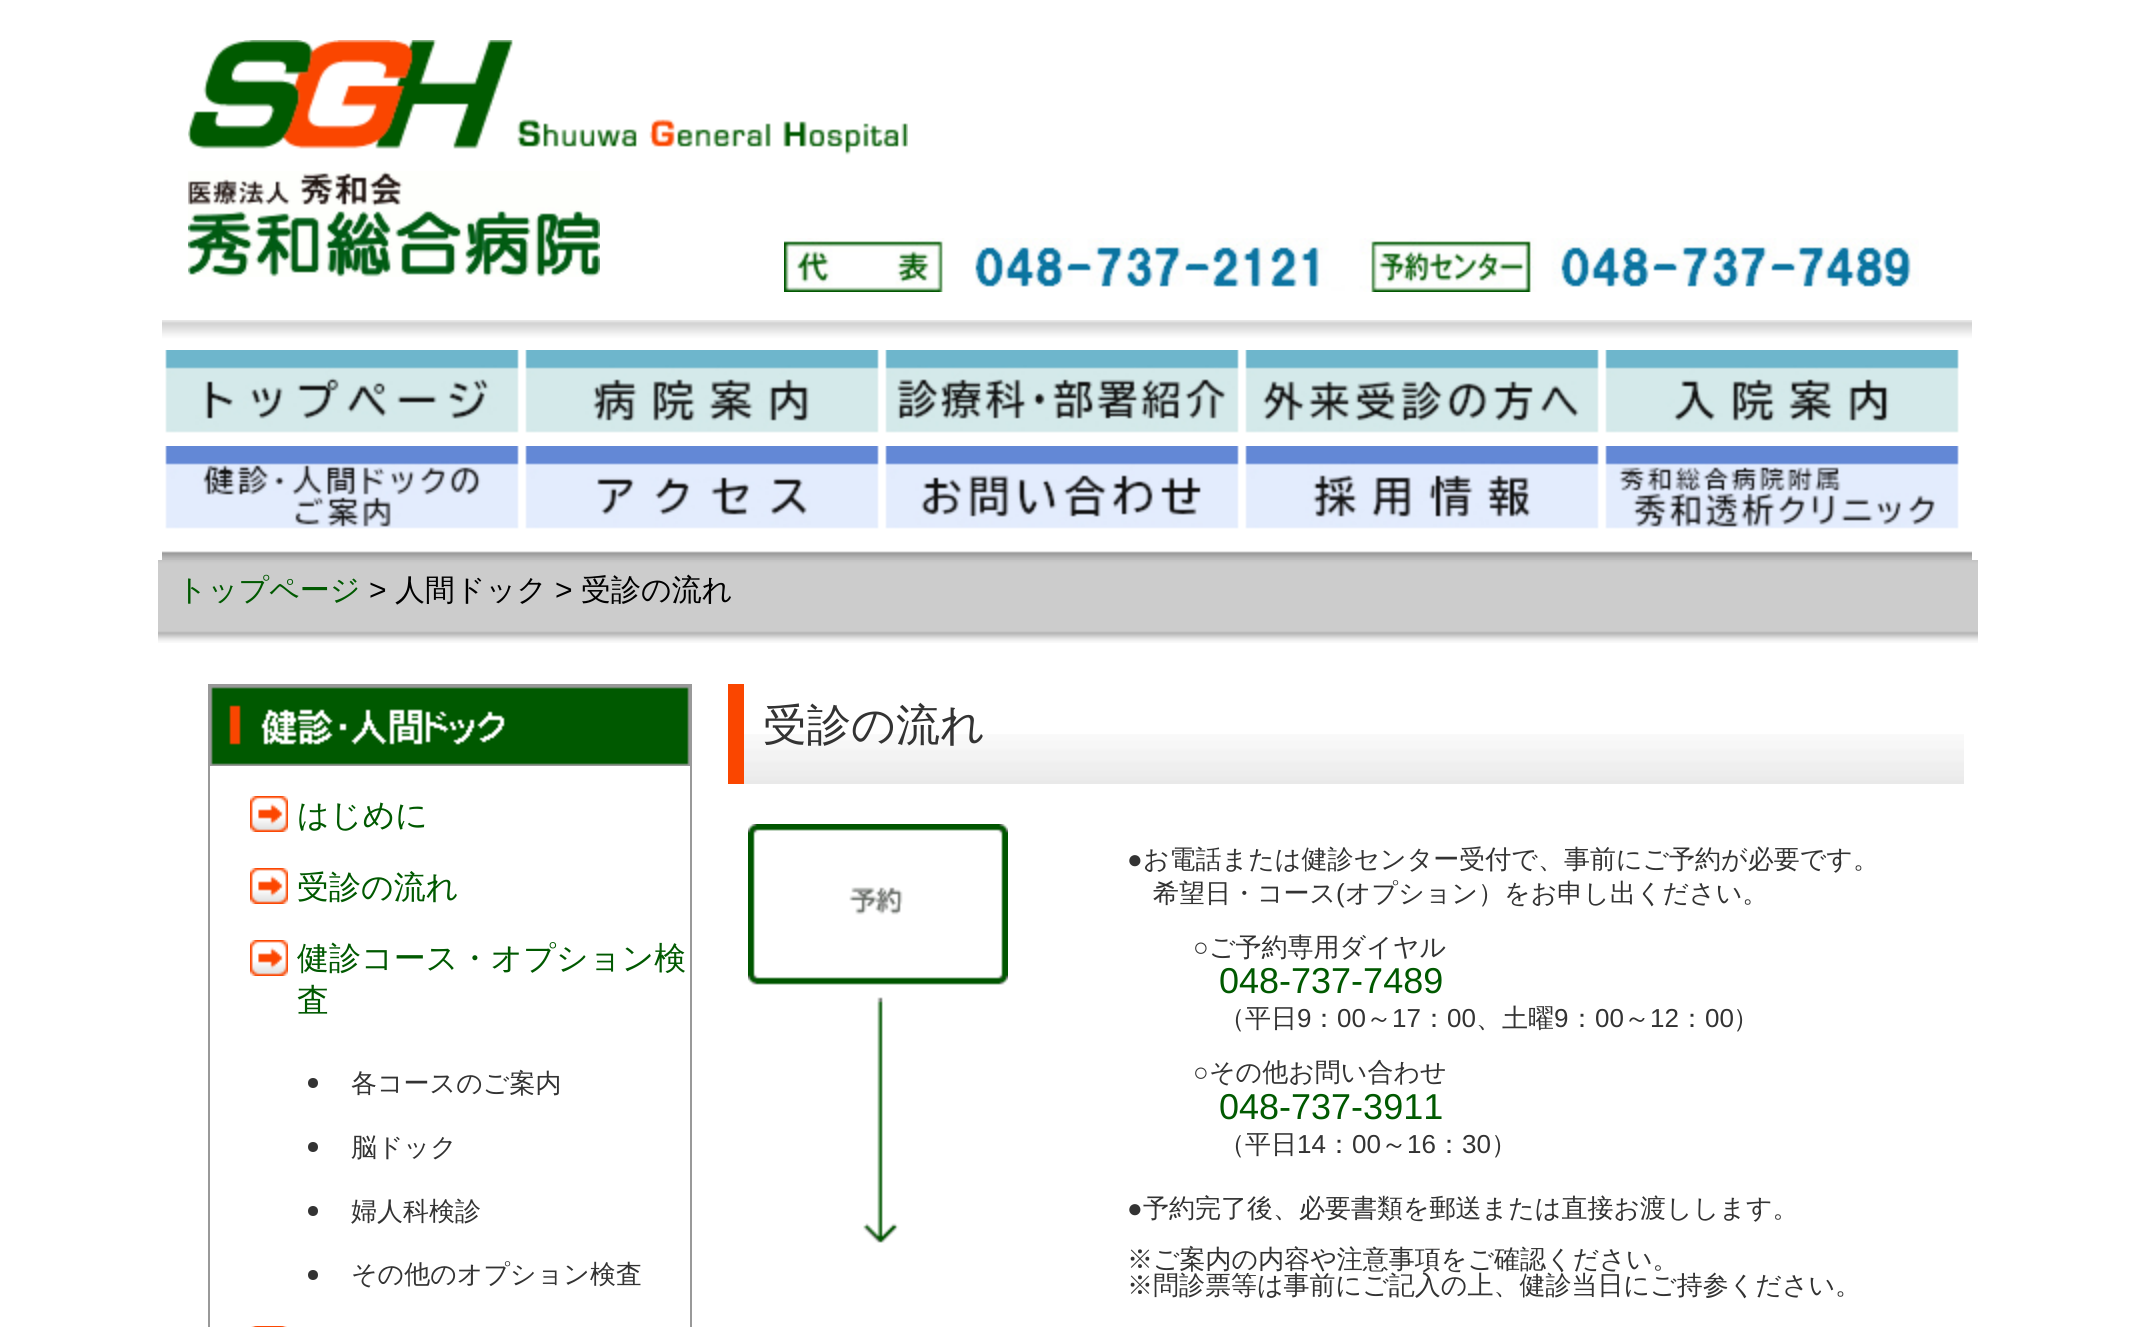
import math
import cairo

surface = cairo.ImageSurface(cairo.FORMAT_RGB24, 2134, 1327)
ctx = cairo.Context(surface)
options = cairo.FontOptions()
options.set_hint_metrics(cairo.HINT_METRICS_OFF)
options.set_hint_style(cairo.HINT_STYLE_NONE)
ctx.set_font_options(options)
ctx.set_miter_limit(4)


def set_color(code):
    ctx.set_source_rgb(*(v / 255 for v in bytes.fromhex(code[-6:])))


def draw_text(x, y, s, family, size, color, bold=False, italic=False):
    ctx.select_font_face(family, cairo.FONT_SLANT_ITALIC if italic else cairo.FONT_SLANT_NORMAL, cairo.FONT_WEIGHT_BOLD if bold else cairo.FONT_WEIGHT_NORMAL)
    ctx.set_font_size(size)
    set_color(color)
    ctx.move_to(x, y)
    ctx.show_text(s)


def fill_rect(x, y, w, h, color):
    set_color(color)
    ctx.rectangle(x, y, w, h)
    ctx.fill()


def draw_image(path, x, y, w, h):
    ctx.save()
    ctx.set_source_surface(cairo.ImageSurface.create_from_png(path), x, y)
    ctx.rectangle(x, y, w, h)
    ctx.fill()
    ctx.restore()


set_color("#ffffff")
ctx.paint()
draw_image("assets/img1.png", 188, 40, 720, 115)
draw_image("assets/img2.png", 188, 171, 412, 106)
draw_image("assets/img3.png", 784, 238, 1135, 54)
draw_image("assets/img4.png", 162, 320, 1810, 240)
draw_image("assets/img5.png", 165, 350, 354, 83)
draw_image("assets/img6.png", 525, 350, 354, 83)
draw_image("assets/img7.png", 885, 350, 354, 83)
draw_image("assets/img8.png", 1245, 350, 354, 83)
draw_image("assets/img9.png", 1605, 350, 354, 83)
draw_image("assets/img10.png", 165, 446, 354, 83)
draw_image("assets/img11.png", 525, 446, 354, 83)
draw_image("assets/img12.png", 885, 446, 354, 83)
draw_image("assets/img13.png", 1245, 446, 354, 83)
draw_image("assets/img14.png", 1605, 446, 354, 83)
draw_image("assets/img15.png", 158, 560, 1820, 83)
draw_text(177, 600, "トップページ", "WenQuanYi Zen Hei Medium", 30, "#005900")
draw_text(369, 600, ">", "Liberation Sans", 30, "#000000")
draw_text(395, 600, "人間ドック", "WenQuanYi Zen Hei Medium", 30, "#000000")
draw_text(555, 600, ">", "Liberation Sans", 30, "#000000")
draw_text(581, 600, "受診の流れ", "WenQuanYi Zen Hei Medium", 30, "#000000")
ctx.rectangle(209, 685, 482, 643)
set_color("#999999")
ctx.stroke()
draw_image("assets/img16.png", 210, 686, 480, 80)
draw_image("assets/img17.png", 250, 796, 38, 36)
draw_text(297, 826, "はじめに", "WenQuanYi Zen Hei Medium", 32, "#005900")
draw_image("assets/img17.png", 250, 868, 38, 36)
draw_text(297, 898, "受診の流れ", "WenQuanYi Zen Hei Medium", 32, "#005900")
draw_image("assets/img17.png", 250, 940, 38, 36)
draw_text(297, 969, "健診コース・オプション検", "WenQuanYi Zen Hei Medium", 32, "#005900")
draw_text(297, 1011, "査", "WenQuanYi Zen Hei Medium", 32, "#005900")
set_color("#333333")
ctx.new_path()
ctx.arc(313, 1083, 5, 0, 2 * math.pi)
ctx.fill()
draw_text(351, 1092, "各コースのご案内", "WenQuanYi Zen Hei Medium", 26, "#333333")
ctx.new_path()
ctx.arc(313, 1147, 5, 0, 2 * math.pi)
ctx.fill()
draw_text(351, 1156, "脳ドック", "WenQuanYi Zen Hei Medium", 26, "#333333")
ctx.new_path()
ctx.arc(313, 1211, 5, 0, 2 * math.pi)
ctx.fill()
draw_text(351, 1220, "婦人科検診", "WenQuanYi Zen Hei Medium", 26, "#333333")
ctx.new_path()
ctx.arc(313, 1275, 5, 0, 2 * math.pi)
ctx.fill()
draw_text(351, 1283, "その他のオプション検査", "WenQuanYi Zen Hei Medium", 26, "#333333")
draw_image("assets/img18.png", 251, 1326, 36, 1)
draw_image("assets/img19.png", 744, 734, 1220, 50)
fill_rect(728, 684, 16, 100, "#fa4600")
draw_text(763, 740, "受診の流れ", "WenQuanYi Zen Hei Medium", 44, "#333333")
draw_image("assets/img20.png", 748, 824, 260, 419)
draw_text(1127, 868, "●", "Liberation Sans", 26, "#333333")
draw_text(1143, 868, "お電話または健診センター受付で、事前にご予約が必要です。", "WenQuanYi Zen Hei Medium", 26, "#333333")
draw_text(1153, 902, "希望日・コース", "WenQuanYi Zen Hei Medium", 26, "#333333")
draw_text(1336, 902, "(", "Liberation Sans", 26, "#333333")
draw_text(1345, 902, "オプション）をお申し出ください。", "WenQuanYi Zen Hei Medium", 26, "#333333")
draw_text(1193, 956, "○", "Liberation Sans", 26, "#333333")
draw_text(1209, 956, "ご予約専用ダイヤル", "WenQuanYi Zen Hei Medium", 26, "#333333")
draw_text(1219, 993, "048-737-7489", "Liberation Sans", 36, "#005900")
draw_text(1219, 1027, "（平日", "WenQuanYi Zen Hei Medium", 26, "#333333")
draw_text(1297, 1027, "9", "Liberation Sans", 26, "#333333")
draw_text(1311, 1027, "：", "WenQuanYi Zen Hei Medium", 26, "#333333")
draw_text(1337, 1027, "00", "Liberation Sans", 26, "#333333")
draw_text(1366, 1027, "～", "WenQuanYi Zen Hei Medium", 26, "#333333")
draw_text(1392, 1027, "17", "Liberation Sans", 26, "#333333")
draw_text(1421, 1027, "：", "WenQuanYi Zen Hei Medium", 26, "#333333")
draw_text(1447, 1027, "00", "Liberation Sans", 26, "#333333")
draw_text(1476, 1027, "、土曜", "WenQuanYi Zen Hei Medium", 26, "#333333")
draw_text(1554, 1027, "9", "Liberation Sans", 26, "#333333")
draw_text(1569, 1027, "：", "WenQuanYi Zen Hei Medium", 26, "#333333")
draw_text(1595, 1027, "00", "Liberation Sans", 26, "#333333")
draw_text(1624, 1027, "～", "WenQuanYi Zen Hei Medium", 26, "#333333")
draw_text(1650, 1027, "12", "Liberation Sans", 26, "#333333")
draw_text(1679, 1027, "：", "WenQuanYi Zen Hei Medium", 26, "#333333")
draw_text(1705, 1027, "00", "Liberation Sans", 26, "#333333")
draw_text(1733, 1027, "）", "WenQuanYi Zen Hei Medium", 26, "#333333")
draw_text(1193, 1081, "○", "Liberation Sans", 26, "#333333")
draw_text(1209, 1081, "その他お問い合わせ", "WenQuanYi Zen Hei Medium", 26, "#333333")
draw_text(1219, 1119, "048-737-3911", "Liberation Sans", 36, "#005900")
draw_text(1219, 1153, "（平日", "WenQuanYi Zen Hei Medium", 26, "#333333")
draw_text(1297, 1153, "14", "Liberation Sans", 26, "#333333")
draw_text(1326, 1153, "：", "WenQuanYi Zen Hei Medium", 26, "#333333")
draw_text(1352, 1153, "00", "Liberation Sans", 26, "#333333")
draw_text(1381, 1153, "～", "WenQuanYi Zen Hei Medium", 26, "#333333")
draw_text(1407, 1153, "16", "Liberation Sans", 26, "#333333")
draw_text(1436, 1153, "：", "WenQuanYi Zen Hei Medium", 26, "#333333")
draw_text(1462, 1153, "30", "Liberation Sans", 26, "#333333")
draw_text(1491, 1153, "）", "WenQuanYi Zen Hei Medium", 26, "#333333")
draw_text(1127, 1217, "●", "Liberation Sans", 26, "#333333")
draw_text(1143, 1217, "予約完了後、必要書類を郵送または直接お渡しします。", "WenQuanYi Zen Hei Medium", 26, "#333333")
draw_text(1127, 1268, "※ご案内の内容や注意事項をご確認ください。", "WenQuanYi Zen Hei Medium", 26, "#333333")
draw_text(1127, 1294, "※問診票等は事前にご記入の上、健診当日にご持参ください。", "WenQuanYi Zen Hei Medium", 26, "#333333")
surface.write_to_png("output.png")
